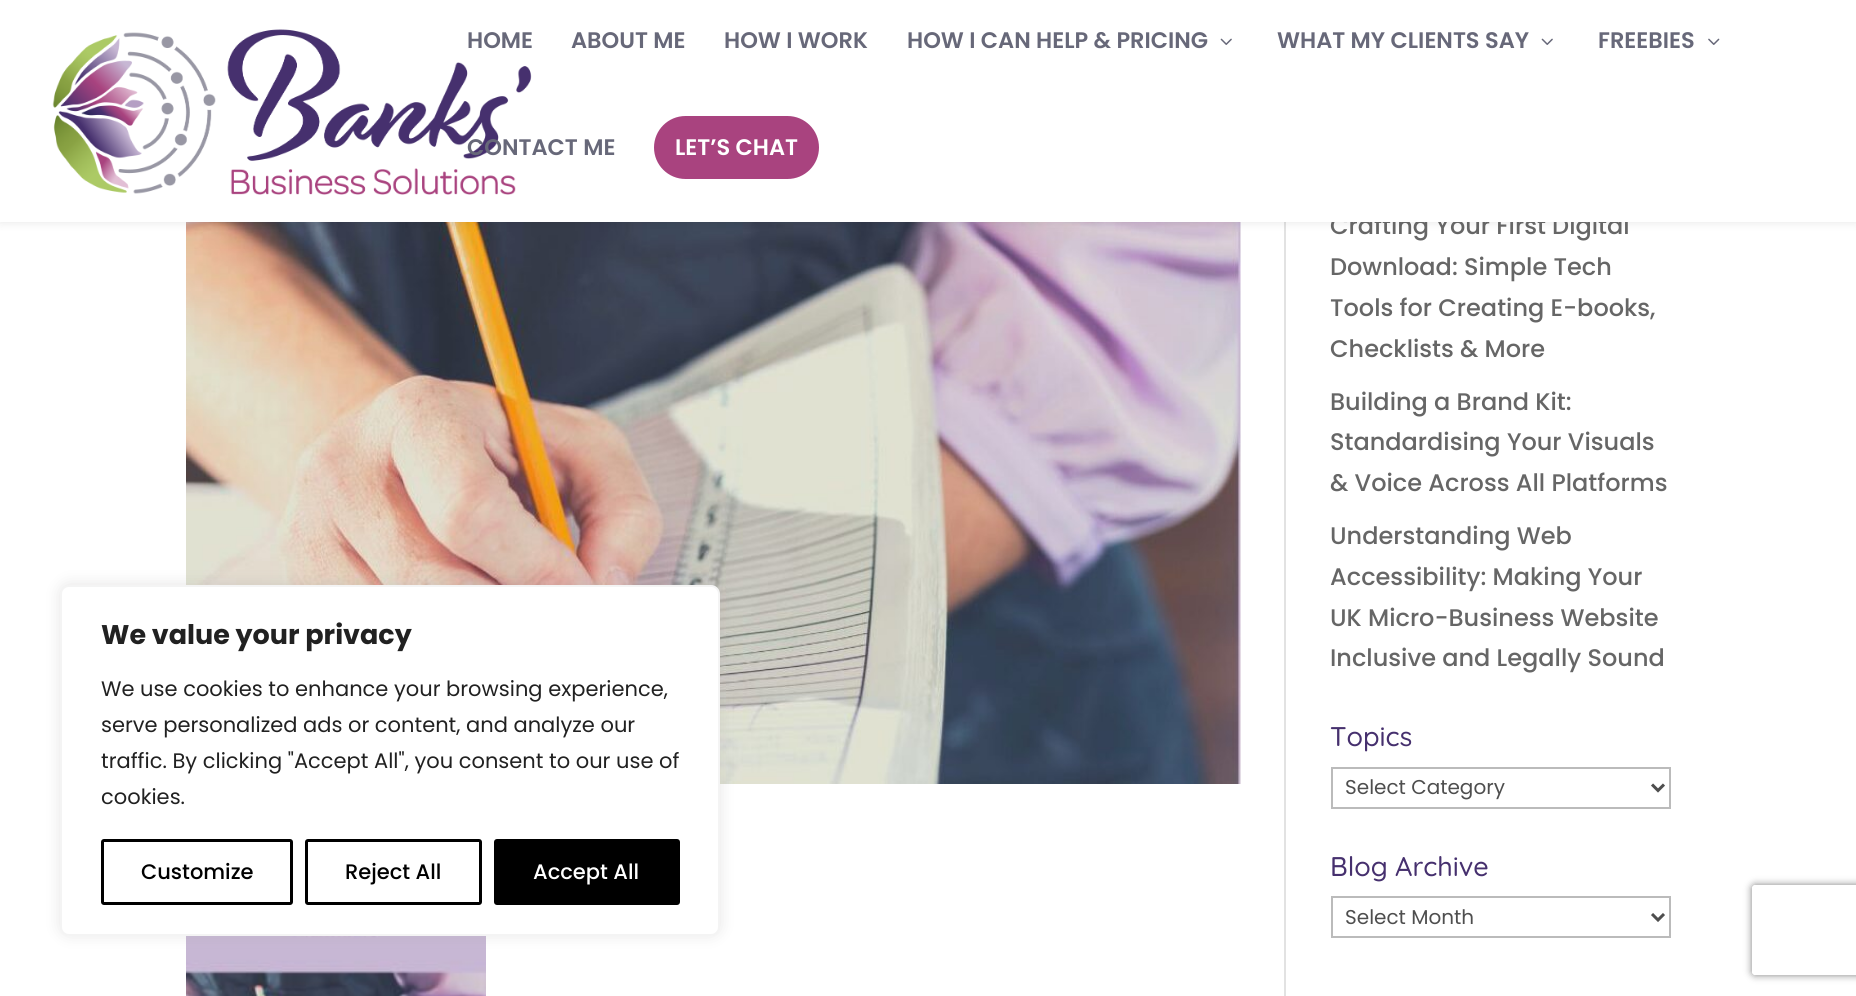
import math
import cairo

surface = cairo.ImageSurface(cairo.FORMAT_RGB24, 1856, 996)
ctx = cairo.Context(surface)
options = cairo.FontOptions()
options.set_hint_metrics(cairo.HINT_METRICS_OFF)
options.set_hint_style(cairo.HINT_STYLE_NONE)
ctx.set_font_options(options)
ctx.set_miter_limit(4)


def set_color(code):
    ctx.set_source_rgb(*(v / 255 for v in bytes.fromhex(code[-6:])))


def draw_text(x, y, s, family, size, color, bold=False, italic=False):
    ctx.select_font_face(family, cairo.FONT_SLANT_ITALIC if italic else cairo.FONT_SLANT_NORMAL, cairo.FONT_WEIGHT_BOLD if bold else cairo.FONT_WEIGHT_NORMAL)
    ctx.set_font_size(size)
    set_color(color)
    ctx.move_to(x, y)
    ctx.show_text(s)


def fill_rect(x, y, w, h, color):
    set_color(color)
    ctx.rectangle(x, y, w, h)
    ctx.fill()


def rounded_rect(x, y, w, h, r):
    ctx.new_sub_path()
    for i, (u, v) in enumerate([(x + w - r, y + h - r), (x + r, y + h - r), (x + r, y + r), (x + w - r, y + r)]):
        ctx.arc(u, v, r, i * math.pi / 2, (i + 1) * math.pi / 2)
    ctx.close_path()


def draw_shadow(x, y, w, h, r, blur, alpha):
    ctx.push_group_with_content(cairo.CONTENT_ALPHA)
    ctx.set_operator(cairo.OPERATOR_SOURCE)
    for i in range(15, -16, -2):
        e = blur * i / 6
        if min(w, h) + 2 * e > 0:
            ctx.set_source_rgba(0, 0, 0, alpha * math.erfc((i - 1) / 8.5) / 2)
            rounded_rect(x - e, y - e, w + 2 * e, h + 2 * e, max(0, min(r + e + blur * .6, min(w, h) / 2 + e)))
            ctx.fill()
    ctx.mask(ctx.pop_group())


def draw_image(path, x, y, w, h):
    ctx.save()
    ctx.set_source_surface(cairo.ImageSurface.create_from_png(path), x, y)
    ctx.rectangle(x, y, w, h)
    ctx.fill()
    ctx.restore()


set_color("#ffffff")
ctx.paint()
draw_image("assets/img4.png", 186, 222, 1055, 562)
draw_image("assets/img5.png", 186, 936, 300, 60)
set_color("#acabab")
draw_shadow(60, 584, 660, 351, 9, 7.5, 0.3)
set_color("#ffffff")
rounded_rect(61, 586, 658, 349, 8)
ctx.fill_preserve()
set_color("#f4f4f4")
ctx.stroke()
draw_text(101, 644, "We value your privacy", "Poppins", 27, "#212121", bold=True)
draw_text(101, 696, "We use cookies to enhance your browsing experience,", "Poppins", 21, "#212121")
draw_text(101, 732, "serve personalized ads or content, and analyze our", "Poppins", 21, "#212121")
draw_text(101, 768, "traffic. By clicking \"Accept All\", you consent to our use of", "Poppins", 21, "#212121")
draw_text(101, 804, "cookies.", "Poppins", 21, "#212121")
rounded_rect(102.5, 840.5, 189, 63, 1.5)
set_color("#000000")
ctx.set_line_width(3)
ctx.stroke()
draw_text(141, 879, "Customize", "Poppins Medium", 21, "#000000")
rounded_rect(306.5, 840.5, 174, 63, 1.5)
ctx.stroke()
draw_text(345, 879, "Reject All", "Poppins Medium", 21, "#000000")
rounded_rect(495.5, 840.5, 183, 63, 1.5)
ctx.fill_preserve()
ctx.stroke()
draw_text(533, 879, "Accept All", "Poppins Medium", 21, "#ffffff")
fill_rect(1284, 222, 2, 774, "#e2e2e2")
set_color("#000000")
draw_shadow(0, 0, 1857, 222, 0, 5, 0.1)
draw_text(1330, 234, "Crafting Your First Digital", "Poppins Medium", 24, "#666666")
fill_rect(0, 0, 1856, 222, "#ffffff")
draw_image("assets/img1.png", 52, 29, 480, 166)
draw_text(467, 48, "HOME", "Poppins SemiBold", 22.5, "#676879")
draw_text(571, 48, "ABOUT ME", "Poppins SemiBold", 22.5, "#676879")
draw_text(724, 48, "HOW I WORK", "Poppins SemiBold", 22.5, "#676879")
draw_text(907, 48, "HOW I CAN HELP & PRICING", "Poppins SemiBold", 22.5, "#676879")
draw_image("assets/img2.png", 1220, 38, 12, 7)
draw_text(1277, 48, "WHAT MY CLIENTS SAY", "Poppins SemiBold", 22.5, "#676879")
draw_image("assets/img2.png", 1541, 38, 12, 7)
draw_text(1598, 48, "FREEBIES", "Poppins SemiBold", 22.5, "#676879")
draw_image("assets/img3.png", 1708, 38, 12, 7)
draw_text(467, 155, "CONTACT ME", "Poppins SemiBold", 22.5, "#676879")
set_color("#a9437f")
rounded_rect(655.5, 117.5, 162, 60, 30)
ctx.fill_preserve()
ctx.stroke()
draw_text(675, 155, "LET’S CHAT", "Poppins SemiBold", 22.5, "#ffffff")
draw_text(1330, 275, "Download: Simple Tech", "Poppins Medium", 24, "#666666")
draw_text(1330, 316, "Tools for Creating E-books,", "Poppins Medium", 24, "#666666")
draw_text(1330, 357, "Checklists & More", "Poppins Medium", 24, "#666666")
draw_text(1330, 410, "Building a Brand Kit:", "Poppins Medium", 24, "#666666")
draw_text(1330, 450, "Standardising Your Visuals", "Poppins Medium", 24, "#666666")
draw_text(1330, 491, "& Voice Across All Platforms", "Poppins Medium", 24, "#666666")
draw_text(1330, 544, "Understanding Web", "Poppins Medium", 24, "#666666")
draw_text(1330, 585, "Accessibility: Making Your", "Poppins Medium", 24, "#666666")
draw_text(1330, 626, "UK Micro-Business Website", "Poppins Medium", 24, "#666666")
draw_text(1330, 666, "Inclusive and Legally Sound", "Poppins Medium", 24, "#666666")
draw_text(1330, 746, "Topics", "Quicksand Medium", 27, "#46306e")
ctx.rectangle(1332, 768, 338, 40)
set_color("#bbbbbb")
ctx.set_line_width(2)
ctx.stroke()
ctx.new_path()
ctx.move_to(1652, 784.5)
ctx.line_to(1658, 790.5)
ctx.line_to(1664, 784.5)
set_color("#4e4e4e")
ctx.set_line_width(3)
ctx.stroke()
draw_text(1345, 794, "Select Category", "Poppins", 20, "#4e4e4e")
draw_text(1330, 876, "Blog Archive", "Quicksand Medium", 27, "#46306e")
ctx.rectangle(1332, 897, 338, 40)
set_color("#bbbbbb")
ctx.set_line_width(2)
ctx.stroke()
ctx.new_path()
ctx.move_to(1652, 914)
ctx.line_to(1658, 920)
ctx.line_to(1664, 914)
set_color("#4e4e4e")
ctx.set_line_width(3)
ctx.stroke()
draw_text(1345, 924, "Select Month", "Poppins", 20, "#4e4e4e")
ctx.save()
ctx.set_fill_rule(cairo.FILL_RULE_EVEN_ODD)
ctx.new_path()
ctx.move_to(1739, 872)
ctx.line_to(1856, 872)
ctx.line_to(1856, 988)
ctx.line_to(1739, 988)
ctx.close_path()
ctx.move_to(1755, 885)
ctx.line_to(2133, 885)
ctx.curve_to(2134.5, 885, 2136, 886.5, 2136, 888)
ctx.line_to(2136, 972)
ctx.curve_to(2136, 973.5, 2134.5, 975, 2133, 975)
ctx.line_to(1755, 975)
ctx.curve_to(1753.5, 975, 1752, 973.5, 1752, 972)
ctx.line_to(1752, 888)
ctx.curve_to(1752, 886.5, 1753.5, 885, 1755, 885)
ctx.close_path()
ctx.clip()
set_color("#808080")
draw_shadow(1752, 885, 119, 90, 3, 4, 1)
ctx.restore()
surface.write_to_png("output.png")
